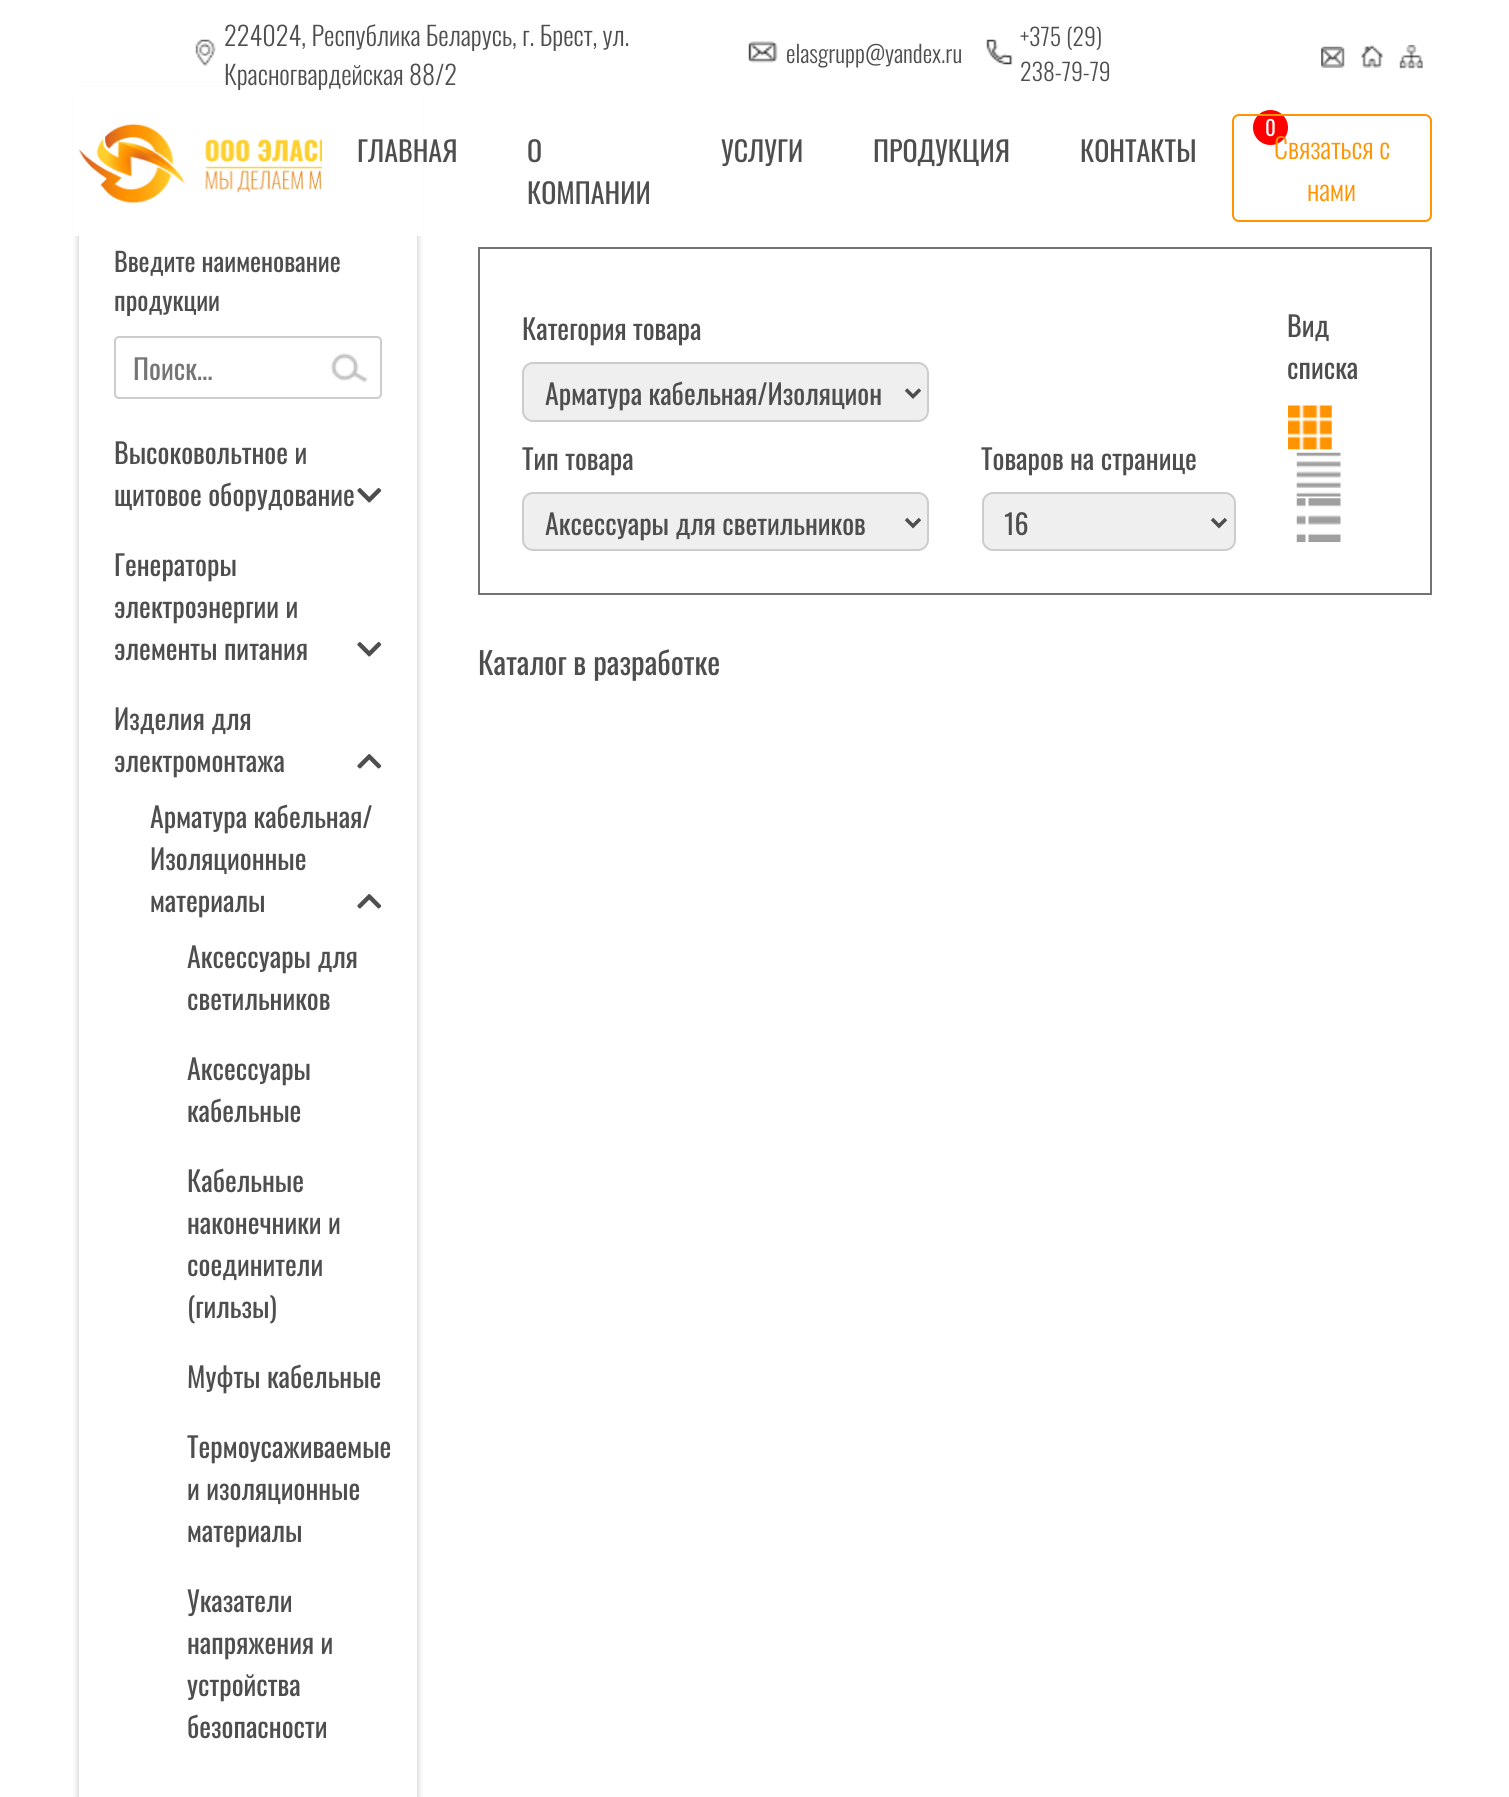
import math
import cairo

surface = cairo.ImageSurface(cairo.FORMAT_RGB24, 1509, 1797)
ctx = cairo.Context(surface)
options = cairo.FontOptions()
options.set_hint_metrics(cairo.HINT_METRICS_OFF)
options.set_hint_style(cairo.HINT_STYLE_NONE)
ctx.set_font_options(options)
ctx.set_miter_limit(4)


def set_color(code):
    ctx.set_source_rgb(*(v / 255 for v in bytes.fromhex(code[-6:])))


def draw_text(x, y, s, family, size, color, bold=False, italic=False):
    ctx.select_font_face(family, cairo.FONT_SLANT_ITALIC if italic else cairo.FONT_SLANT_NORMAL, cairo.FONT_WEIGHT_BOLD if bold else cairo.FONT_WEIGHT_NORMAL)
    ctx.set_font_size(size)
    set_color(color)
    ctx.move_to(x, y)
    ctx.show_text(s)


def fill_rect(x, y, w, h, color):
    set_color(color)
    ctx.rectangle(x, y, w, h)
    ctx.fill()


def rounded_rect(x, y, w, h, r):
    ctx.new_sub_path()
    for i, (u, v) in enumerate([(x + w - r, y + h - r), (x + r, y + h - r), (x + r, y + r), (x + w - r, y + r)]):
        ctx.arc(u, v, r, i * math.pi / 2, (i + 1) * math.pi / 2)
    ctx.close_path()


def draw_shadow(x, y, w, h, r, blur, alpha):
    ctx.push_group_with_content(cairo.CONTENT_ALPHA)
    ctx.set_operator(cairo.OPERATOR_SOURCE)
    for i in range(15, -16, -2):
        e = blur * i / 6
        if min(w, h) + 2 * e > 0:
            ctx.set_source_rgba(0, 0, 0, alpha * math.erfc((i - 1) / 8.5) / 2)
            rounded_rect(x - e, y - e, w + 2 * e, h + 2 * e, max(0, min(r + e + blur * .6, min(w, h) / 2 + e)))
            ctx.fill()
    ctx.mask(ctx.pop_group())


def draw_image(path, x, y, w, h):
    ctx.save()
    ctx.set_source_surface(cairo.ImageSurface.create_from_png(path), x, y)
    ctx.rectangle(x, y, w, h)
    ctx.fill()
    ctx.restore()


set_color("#ffffff")
ctx.paint()
set_color("#000000")
draw_shadow(79, 93, 338, 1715, 0, 3.5, 0.25)
fill_rect(73, 87, 350, 149, "#ffffff")
draw_image("assets/img1.png", 195, 39, 21, 27)
draw_text(224, 46, "224024, Республика Беларусь, г. Брест, ул.", "Oswald Light", 26.2, "#4e4e4e")
draw_text(224, 85, "Красногвардейская 88/2", "Oswald Light", 26.2, "#4e4e4e")
draw_image("assets/img2.png", 748, 41, 30, 22)
draw_text(786, 63, "elasgrupp@yandex.ru", "Oswald Light", 23.75, "#4e4e4e")
draw_image("assets/img3.png", 986, 39, 27, 26)
draw_text(1020, 46, "+375 (29)", "Oswald Light", 23.75, "#4e4e4e")
draw_text(1020, 81, "238-79-79", "Oswald Light", 23.75, "#4e4e4e")
draw_image("assets/img4.png", 1321, 46, 24, 22)
draw_image("assets/img5.png", 1361, 45, 23, 23)
draw_image("assets/img6.png", 1399, 45, 24, 24)
draw_image("assets/img7.png", 78, 123, 244, 80)
set_color("#ff0000")
ctx.arc(1270.5, 127.5, 17.5, 0, 2 * math.pi)
ctx.fill()
draw_text(1265, 136, "0", "Oswald", 21, "#ffffff")
draw_text(357, 162, "ГЛАВНАЯ", "Oswald", 28, "#4e4e4e")
draw_text(527, 162, "О", "Oswald", 28, "#4e4e4e")
draw_text(527, 204, "КОМПАНИИ", "Oswald", 28, "#4e4e4e")
draw_text(721, 162, "УСЛУГИ", "Oswald", 28, "#4e4e4e")
draw_text(873, 162, "ПРОДУКЦИЯ", "Oswald", 28, "#4e4e4e")
draw_text(1080, 162, "КОНТАКТЫ", "Oswald", 28, "#4e4e4e")
rounded_rect(1233, 115, 198, 106, 6)
set_color("#ff9300")
ctx.stroke()
draw_text(1274, 159, "Связаться с", "Oswald Light", 28, "#ff9300")
draw_text(1307, 201, "нами", "Oswald Light", 28, "#ff9300")
fill_rect(79, 236, 338, 1561, "#ffffff")
draw_text(114, 272, "Введите наименование", "Oswald", 26.2, "#4e4e4e")
draw_text(114, 311, "продукции", "Oswald", 26.2, "#4e4e4e")
rounded_rect(115, 337, 266, 61, 4)
set_color("#cccccc")
ctx.stroke()
draw_text(133, 380, "Поиск...", "Oswald", 28, "#757575")
draw_image("assets/img8.png", 330, 353, 38, 30)
draw_text(114, 464, "Высоковольтное и", "Oswald", 28, "#4e4e4e")
draw_text(114, 506, "щитовое оборудование", "Oswald", 28, "#4e4e4e")
draw_image("assets/img9.png", 357, 488, 25, 15)
draw_text(114, 576, "Генераторы", "Oswald", 28, "#4e4e4e")
draw_text(114, 618, "электроэнергии и", "Oswald", 28, "#4e4e4e")
draw_text(114, 660, "элементы питания", "Oswald", 28, "#4e4e4e")
draw_image("assets/img9.png", 357, 642, 25, 15)
draw_text(114, 730, "Изделия для", "Oswald", 28, "#4e4e4e")
draw_text(114, 772, "электромонтажа", "Oswald", 28, "#4e4e4e")
draw_image("assets/img10.png", 357, 754, 25, 15)
draw_text(150, 828, "Арматура кабельная/", "Oswald", 28, "#4e4e4e")
draw_text(150, 870, "Изоляционные", "Oswald", 28, "#4e4e4e")
draw_text(150, 912, "материалы", "Oswald", 28, "#4e4e4e")
draw_image("assets/img10.png", 357, 894, 25, 15)
draw_text(187, 968, "Аксессуары для", "Oswald", 28, "#4e4e4e")
draw_text(187, 1010, "светильников", "Oswald", 28, "#4e4e4e")
draw_text(187, 1080, "Аксессуары", "Oswald", 28, "#4e4e4e")
draw_text(187, 1122, "кабельные", "Oswald", 28, "#4e4e4e")
draw_text(187, 1192, "Кабельные", "Oswald", 28, "#4e4e4e")
draw_text(187, 1234, "наконечники и", "Oswald", 28, "#4e4e4e")
draw_text(187, 1276, "соединители", "Oswald", 28, "#4e4e4e")
draw_text(187, 1318, "(гильзы)", "Oswald", 28, "#4e4e4e")
draw_text(187, 1388, "Муфты кабельные", "Oswald", 28, "#4e4e4e")
draw_text(187, 1458, "Термоусаживаемые", "Oswald", 28, "#4e4e4e")
draw_text(187, 1500, "и изоляционные", "Oswald", 28, "#4e4e4e")
draw_text(187, 1542, "материалы", "Oswald", 28, "#4e4e4e")
draw_text(187, 1612, "Указатели", "Oswald", 28, "#4e4e4e")
draw_text(187, 1654, "напряжения и", "Oswald", 28, "#4e4e4e")
draw_text(187, 1696, "устройства", "Oswald", 28, "#4e4e4e")
draw_text(187, 1738, "безопасности", "Oswald", 28, "#4e4e4e")
ctx.rectangle(479, 248, 952, 346)
set_color("#737373")
ctx.stroke()
draw_text(522, 340, "Категория товара", "Oswald", 28, "#4e4e4e")
set_color("#efefef")
rounded_rect(523, 363, 405, 58, 10)
ctx.fill_preserve()
set_color("#cccccc")
ctx.stroke()
ctx.new_path()
ctx.move_to(906, 389.5)
ctx.line_to(913, 396.5)
ctx.line_to(920, 389.5)
set_color("#4e4e4e")
ctx.set_line_width(3.5)
ctx.stroke()
draw_text(545, 405, "Арматура кабельная/Изоляцион", "Oswald", 28, "#4e4e4e")
draw_text(522, 470, "Тип товара", "Oswald", 28, "#4e4e4e")
set_color("#efefef")
rounded_rect(523, 493, 405, 57, 10)
ctx.fill_preserve()
set_color("#cccccc")
ctx.set_line_width(2)
ctx.stroke()
ctx.new_path()
ctx.move_to(906, 519)
ctx.line_to(913, 526)
ctx.line_to(920, 519)
set_color("#4e4e4e")
ctx.set_line_width(3.5)
ctx.stroke()
draw_text(545, 535, "Аксессуары для светильников", "Oswald", 28, "#4e4e4e")
draw_text(981, 470, "Товаров на странице", "Oswald", 28, "#4e4e4e")
set_color("#efefef")
rounded_rect(983, 493, 252, 57, 10)
ctx.fill_preserve()
set_color("#cccccc")
ctx.set_line_width(2)
ctx.stroke()
ctx.new_path()
ctx.move_to(1212, 519)
ctx.line_to(1219, 526)
ctx.line_to(1226, 519)
set_color("#4e4e4e")
ctx.set_line_width(3.5)
ctx.stroke()
ctx.save()
ctx.rectangle(1005, 499, 187, 45)
ctx.clip()
draw_text(1004, 535, "16", "Oswald", 28, "#4e4e4e")
ctx.restore()
draw_text(1287, 337, "Вид", "Oswald", 28, "#4e4e4e")
draw_text(1287, 379, "списка", "Oswald", 28, "#4e4e4e")
draw_image("assets/img11.png", 1288, 405, 44, 45)
draw_image("assets/img12.png", 1296, 452, 45, 45)
draw_image("assets/img13.png", 1296, 498, 45, 44)
draw_text(478, 675, "Каталог в разработке", "Oswald", 30.75, "#4e4e4e")
surface.write_to_png("output.png")
